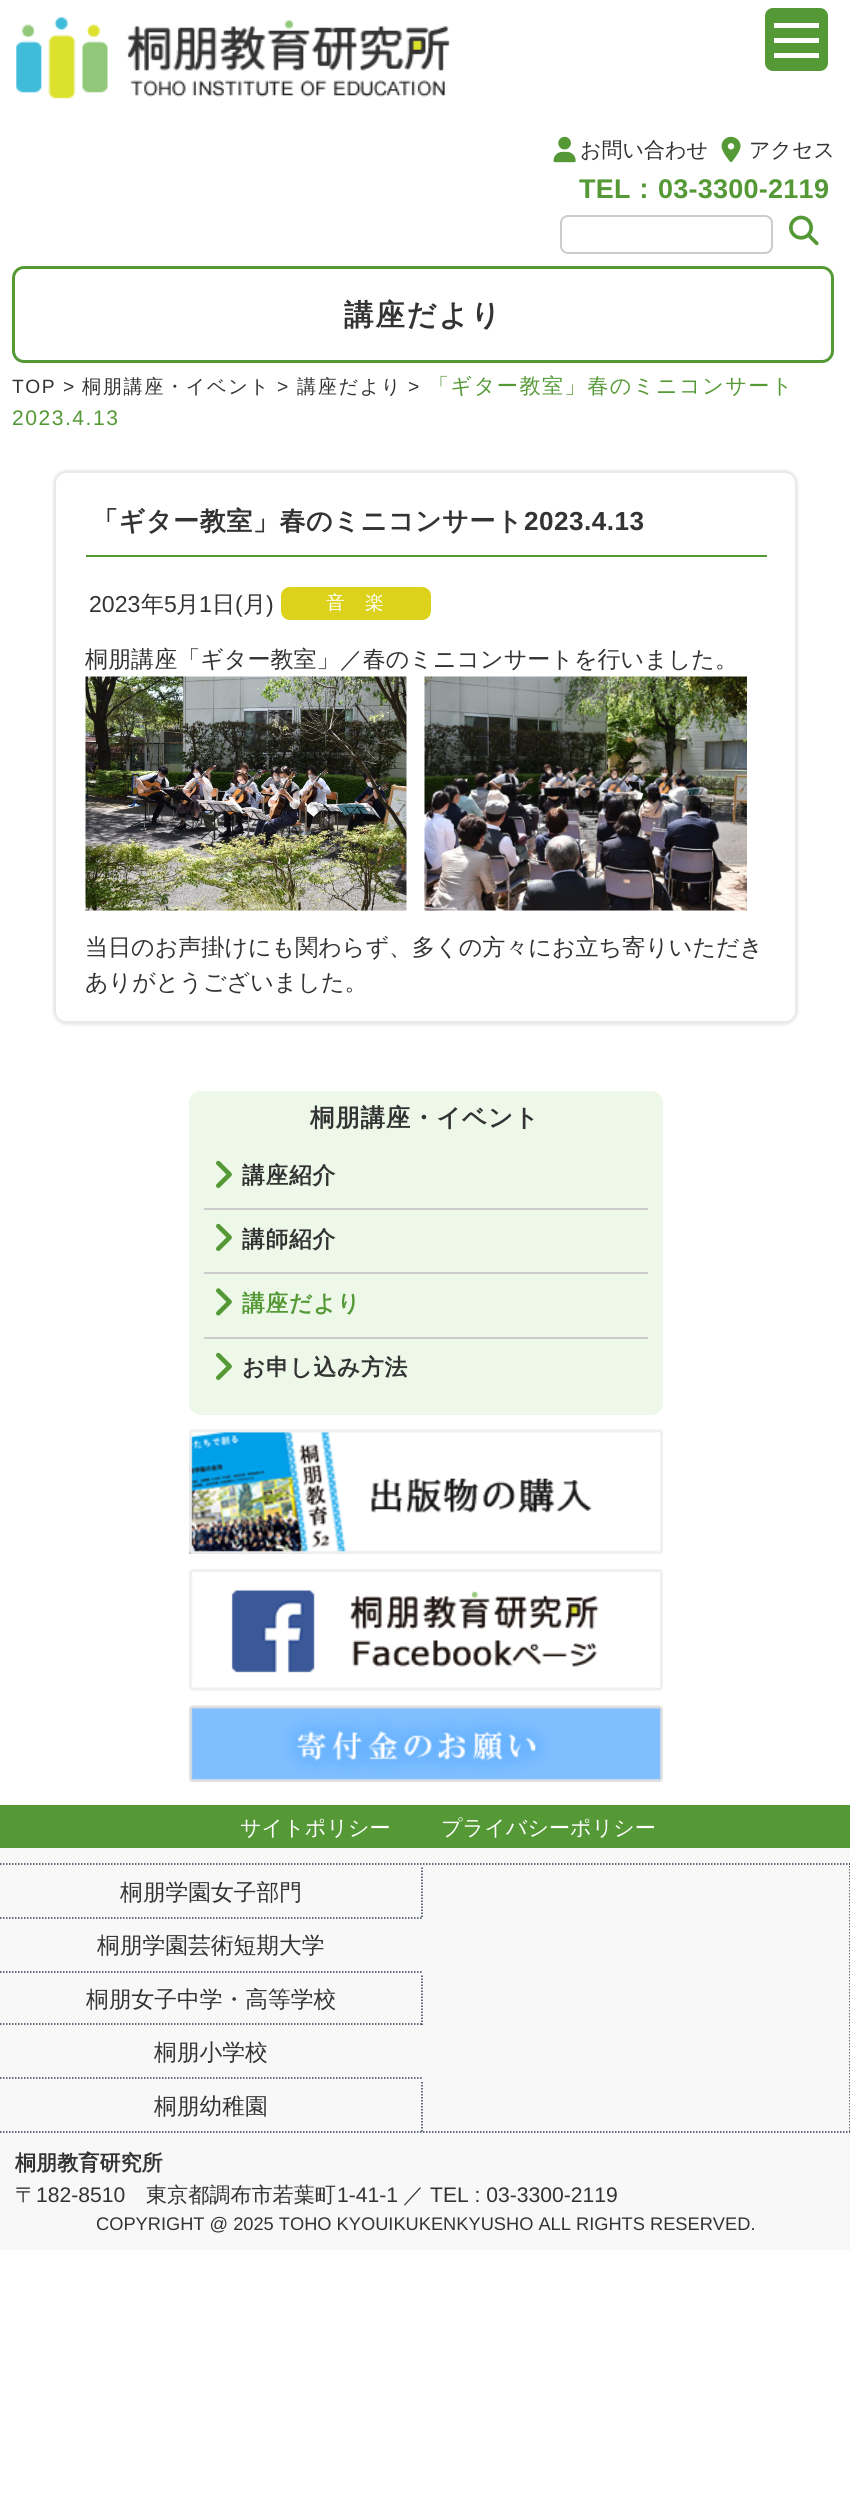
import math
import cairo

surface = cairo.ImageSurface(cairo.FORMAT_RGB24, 850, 2510)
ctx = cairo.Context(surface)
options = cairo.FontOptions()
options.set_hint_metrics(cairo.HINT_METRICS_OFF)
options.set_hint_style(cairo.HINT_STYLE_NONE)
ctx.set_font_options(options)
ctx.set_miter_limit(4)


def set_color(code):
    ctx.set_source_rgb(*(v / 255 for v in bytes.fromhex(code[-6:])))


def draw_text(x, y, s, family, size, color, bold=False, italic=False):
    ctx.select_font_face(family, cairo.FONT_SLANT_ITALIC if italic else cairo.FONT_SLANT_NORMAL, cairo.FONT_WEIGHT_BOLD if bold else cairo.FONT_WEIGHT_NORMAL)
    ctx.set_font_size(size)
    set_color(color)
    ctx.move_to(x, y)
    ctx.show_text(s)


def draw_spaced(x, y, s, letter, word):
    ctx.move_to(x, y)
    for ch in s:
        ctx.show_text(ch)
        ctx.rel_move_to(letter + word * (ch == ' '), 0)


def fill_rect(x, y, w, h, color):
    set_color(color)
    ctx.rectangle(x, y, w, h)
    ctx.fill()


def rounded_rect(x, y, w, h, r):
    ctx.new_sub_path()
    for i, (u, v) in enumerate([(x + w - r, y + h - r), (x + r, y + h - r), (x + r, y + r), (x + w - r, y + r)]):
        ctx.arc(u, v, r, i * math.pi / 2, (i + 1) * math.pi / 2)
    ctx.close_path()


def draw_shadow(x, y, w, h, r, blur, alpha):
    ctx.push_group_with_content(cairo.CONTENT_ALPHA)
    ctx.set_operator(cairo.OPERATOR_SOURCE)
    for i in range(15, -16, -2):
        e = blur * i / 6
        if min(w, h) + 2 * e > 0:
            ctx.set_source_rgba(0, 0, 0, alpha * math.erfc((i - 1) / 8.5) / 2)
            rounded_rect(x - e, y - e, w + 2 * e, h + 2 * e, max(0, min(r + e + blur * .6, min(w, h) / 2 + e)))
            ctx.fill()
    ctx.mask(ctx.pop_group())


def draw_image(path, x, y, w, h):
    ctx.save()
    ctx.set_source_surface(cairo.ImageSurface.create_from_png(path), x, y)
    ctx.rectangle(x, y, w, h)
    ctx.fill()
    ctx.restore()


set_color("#ffffff")
ctx.paint()
set_color("#559937")
rounded_rect(765, 8, 63, 63, 8)
ctx.fill()
fill_rect(774, 23, 45, 5, "#ffffff")
fill_rect(774, 38, 45, 5, "#ffffff")
fill_rect(774, 53, 45, 5, "#ffffff")
draw_image("assets/img1.png", 16, 17, 434, 82)
draw_image("assets/img2.png", 553, 136, 23, 27)
draw_text(580, 157, "お問い合わせ", "WenQuanYi Zen Hei Medium", 21, "#333333")
draw_image("assets/img3.png", 721, 136, 20, 27)
draw_text(749, 157, "アクセス", "WenQuanYi Zen Hei Medium", 21, "#333333")
ctx.select_font_face("Liberation Sans", cairo.FONT_SLANT_NORMAL, cairo.FONT_WEIGHT_BOLD)
ctx.set_font_size(27)
set_color("#559937")
draw_spaced(579, 198, "TEL", 0.25, 0)
ctx.select_font_face("WenQuanYi Zen Hei", cairo.FONT_SLANT_NORMAL, cairo.FONT_WEIGHT_BOLD)
draw_spaced(630, 198, "：", 0.25, 0)
ctx.select_font_face("Liberation Sans", cairo.FONT_SLANT_NORMAL, cairo.FONT_WEIGHT_BOLD)
draw_spaced(658, 198, "03-3300-2119", 0.25, 0)
rounded_rect(561, 216, 211, 37, 7)
set_color("#cccccc")
ctx.stroke()
draw_image("assets/img4.png", 789, 215, 30, 31)
rounded_rect(13.5, 267.5, 819, 94, 10.5)
set_color("#559937")
ctx.set_line_width(3)
ctx.stroke()
ctx.select_font_face("WenQuanYi Zen Hei", cairo.FONT_SLANT_NORMAL, cairo.FONT_WEIGHT_BOLD)
ctx.set_font_size(29.5)
set_color("#333333")
draw_spaced(344, 325, "講座だより", 1.75, 0)
ctx.select_font_face("Liberation Sans")
ctx.set_font_size(19.25)
draw_spaced(12, 393, "TOP >", 1.5, 0)
ctx.select_font_face("WenQuanYi Zen Hei Medium")
draw_spaced(82, 393, "桐朋講座・イベント", 1.5, 0)
ctx.select_font_face("Liberation Sans")
draw_spaced(277, 393, ">", 1.5, 0)
ctx.select_font_face("WenQuanYi Zen Hei Medium")
draw_spaced(297, 393, "講座だより", 1.5, 0)
ctx.select_font_face("Liberation Sans")
draw_spaced(408, 393, ">", 1.5, 0)
ctx.select_font_face("WenQuanYi Zen Hei Medium")
ctx.set_font_size(21.1)
set_color("#559937")
draw_spaced(428, 393, "「ギター教室」春のミニコンサート", 1.5, 0)
ctx.select_font_face("Liberation Sans")
draw_spaced(12, 425, "2023.4.13", 1.5, 0)
ctx.save()
ctx.set_fill_rule(cairo.FILL_RULE_EVEN_ODD)
ctx.new_path()
ctx.move_to(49, 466)
ctx.line_to(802, 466)
ctx.line_to(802, 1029)
ctx.line_to(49, 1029)
ctx.close_path()
ctx.move_to(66, 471)
ctx.line_to(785, 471)
ctx.curve_to(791.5, 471, 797, 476.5, 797, 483)
ctx.line_to(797, 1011)
ctx.curve_to(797, 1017.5, 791.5, 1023, 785, 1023)
ctx.line_to(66, 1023)
ctx.curve_to(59.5, 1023, 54, 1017.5, 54, 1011)
ctx.line_to(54, 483)
ctx.curve_to(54, 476.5, 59.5, 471, 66, 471)
ctx.close_path()
ctx.clip()
set_color("#e9e9e9")
draw_shadow(53, 470, 745, 555, 14, 1, 1)
ctx.restore()
rounded_rect(55, 472, 741, 550, 11)
set_color("#e9e9e9")
ctx.set_line_width(2)
ctx.stroke()
fill_rect(86, 555, 681, 2, "#559937")
ctx.select_font_face("WenQuanYi Zen Hei", cairo.FONT_SLANT_NORMAL, cairo.FONT_WEIGHT_BOLD)
ctx.set_font_size(26.1)
set_color("#333333")
draw_spaced(92, 530, "「ギター教室」春のミニコンサート", 0.5, 0)
ctx.select_font_face("Liberation Sans", cairo.FONT_SLANT_NORMAL, cairo.FONT_WEIGHT_BOLD)
draw_spaced(524, 530, "2023.4.13", 0.5, 0)
draw_text(89, 612, "2023", "Liberation Sans", 23.05, "#333333")
draw_text(141, 612, "年", "WenQuanYi Zen Hei Medium", 23.05, "#333333")
draw_text(164, 612, "5", "Liberation Sans", 23.05, "#333333")
draw_text(176, 612, "月", "WenQuanYi Zen Hei Medium", 23.05, "#333333")
draw_text(199, 612, "1", "Liberation Sans", 23.05, "#333333")
draw_text(212, 612, "日", "WenQuanYi Zen Hei Medium", 23.05, "#333333")
draw_text(235, 612, "(", "Liberation Sans", 23.05, "#333333")
draw_text(243, 612, "月", "WenQuanYi Zen Hei Medium", 23.05, "#333333")
draw_text(266, 612, ")", "Liberation Sans", 23.05, "#333333")
set_color("#dcd21b")
rounded_rect(281, 587, 150, 33, 9)
ctx.fill()
ctx.select_font_face("WenQuanYi Zen Hei Medium")
ctx.set_font_size(19)
set_color("#ffffff")
draw_spaced(326, 609, "音　楽", 0.5, 0)
draw_text(85, 667, "桐朋講座「ギター教室」／春のミニコンサートを行いました。", "WenQuanYi Zen Hei Medium", 23.05, "#333333")
draw_image("assets/img5.png", 85, 676, 322, 235)
draw_image("assets/img6.png", 424, 676, 323, 235)
draw_text(85, 955, "当日のお声掛けにも関わらず、多くの方々にお立ち寄りいただき", "WenQuanYi Zen Hei Medium", 23.05, "#333333")
draw_text(85, 990, "ありがとうございました。", "WenQuanYi Zen Hei Medium", 23.05, "#333333")
set_color("#edf8e9")
rounded_rect(189, 1091, 474, 324, 12)
ctx.fill()
ctx.select_font_face("WenQuanYi Zen Hei", cairo.FONT_SLANT_NORMAL, cairo.FONT_WEIGHT_BOLD)
ctx.set_font_size(24.5)
set_color("#333333")
draw_spaced(310, 1126, "桐朋講座・イベント", 0.75, 0)
draw_image("assets/img7.png", 216, 1160, 16, 28)
ctx.set_font_size(22.75)
draw_spaced(242, 1183, "講座紹介", 0.75, 0)
fill_rect(204, 1208, 444, 2, "#cccccc")
draw_image("assets/img7.png", 216, 1223, 16, 28)
set_color("#333333")
draw_spaced(242, 1247, "講師紹介", 0.75, 0)
fill_rect(204, 1272, 444, 2, "#cccccc")
draw_image("assets/img8.png", 216, 1288, 16, 28)
set_color("#559937")
draw_spaced(242, 1311, "講座だより", 0.75, 0)
fill_rect(204, 1337, 444, 2, "#cccccc")
draw_image("assets/img7.png", 216, 1352, 16, 28)
set_color("#333333")
draw_spaced(242, 1375, "お申し込み方法", 0.75, 0)
draw_image("assets/img9.png", 189, 1429, 474, 125)
draw_image("assets/img10.png", 189, 1569, 474, 122)
draw_image("assets/img11.png", 189, 1705, 474, 77)
fill_rect(0, 1805, 850, 43, "#559937")
draw_text(240, 1835, "サイトポリシー", "WenQuanYi Zen Hei Medium", 21.1, "#ffffff")
draw_text(441, 1835, "プライバシーポリシー", "WenQuanYi Zen Hei Medium", 21.1, "#ffffff")
fill_rect(0, 1848, 850, 402, "#f8f8f8")
ctx.new_path()
ctx.move_to(0, 1864)
ctx.line_to(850.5, 1864)
set_color("#343d55")
ctx.set_line_width(1.5)
ctx.set_dash([1.5, 1.5])
ctx.stroke()
ctx.new_path()
ctx.move_to(850, 1863)
ctx.line_to(850, 2133)
ctx.stroke()
ctx.new_path()
ctx.move_to(0, 2132)
ctx.line_to(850.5, 2132)
ctx.stroke()
ctx.new_path()
ctx.move_to(422, 1867.5)
ctx.line_to(422, 1918.5)
ctx.stroke()
ctx.new_path()
ctx.move_to(0, 1918)
ctx.line_to(423, 1918)
ctx.stroke()
draw_text(120, 1900, "桐朋学園女子部門", "WenQuanYi Zen Hei Medium", 22.75, "#333333")
ctx.new_path()
ctx.move_to(0, 1972)
ctx.line_to(421.5, 1972)
set_color("#343d55")
ctx.stroke()
draw_text(97, 1953, "桐朋学園芸術短期大学", "WenQuanYi Zen Hei Medium", 22.75, "#333333")
ctx.new_path()
ctx.move_to(422, 1975.5)
ctx.line_to(422, 2025)
set_color("#343d55")
ctx.stroke()
ctx.new_path()
ctx.move_to(0, 2024)
ctx.line_to(423, 2024)
ctx.stroke()
draw_text(86, 2007, "桐朋女子中学・高等学校", "WenQuanYi Zen Hei Medium", 22.75, "#333333")
ctx.new_path()
ctx.move_to(0, 2078)
ctx.line_to(421.5, 2078)
set_color("#343d55")
ctx.stroke()
draw_text(154, 2060, "桐朋小学校", "WenQuanYi Zen Hei Medium", 22.75, "#333333")
ctx.new_path()
ctx.move_to(422, 2082)
ctx.line_to(422, 2131.5)
set_color("#343d55")
ctx.stroke()
draw_text(154, 2114, "桐朋幼稚園", "WenQuanYi Zen Hei Medium", 22.75, "#333333")
draw_text(15, 2170, "桐朋教育研究所", "WenQuanYi Zen Hei", 21.1, "#333333", bold=True)
draw_text(15, 2202, "〒", "WenQuanYi Zen Hei Medium", 21.1, "#333333")
draw_text(36, 2202, "182-8510", "Liberation Sans", 21.1, "#333333")
draw_text(146, 2202, "東京都調布市若葉町", "WenQuanYi Zen Hei Medium", 21.1, "#333333")
draw_text(337, 2202, "1-41-1", "Liberation Sans", 21.1, "#333333")
draw_text(403, 2202, "／", "WenQuanYi Zen Hei Medium", 21.1, "#333333")
draw_text(430, 2202, "TEL : 03-3300-2119", "Liberation Sans", 21.1, "#333333")
draw_text(96, 2230, "COPYRIGHT @ 2025 TOHO KYOUIKUKENKYUSHO ALL RIGHTS RESERVED.", "Liberation Sans", 18.25, "#333333")
surface.write_to_png("output.png")
